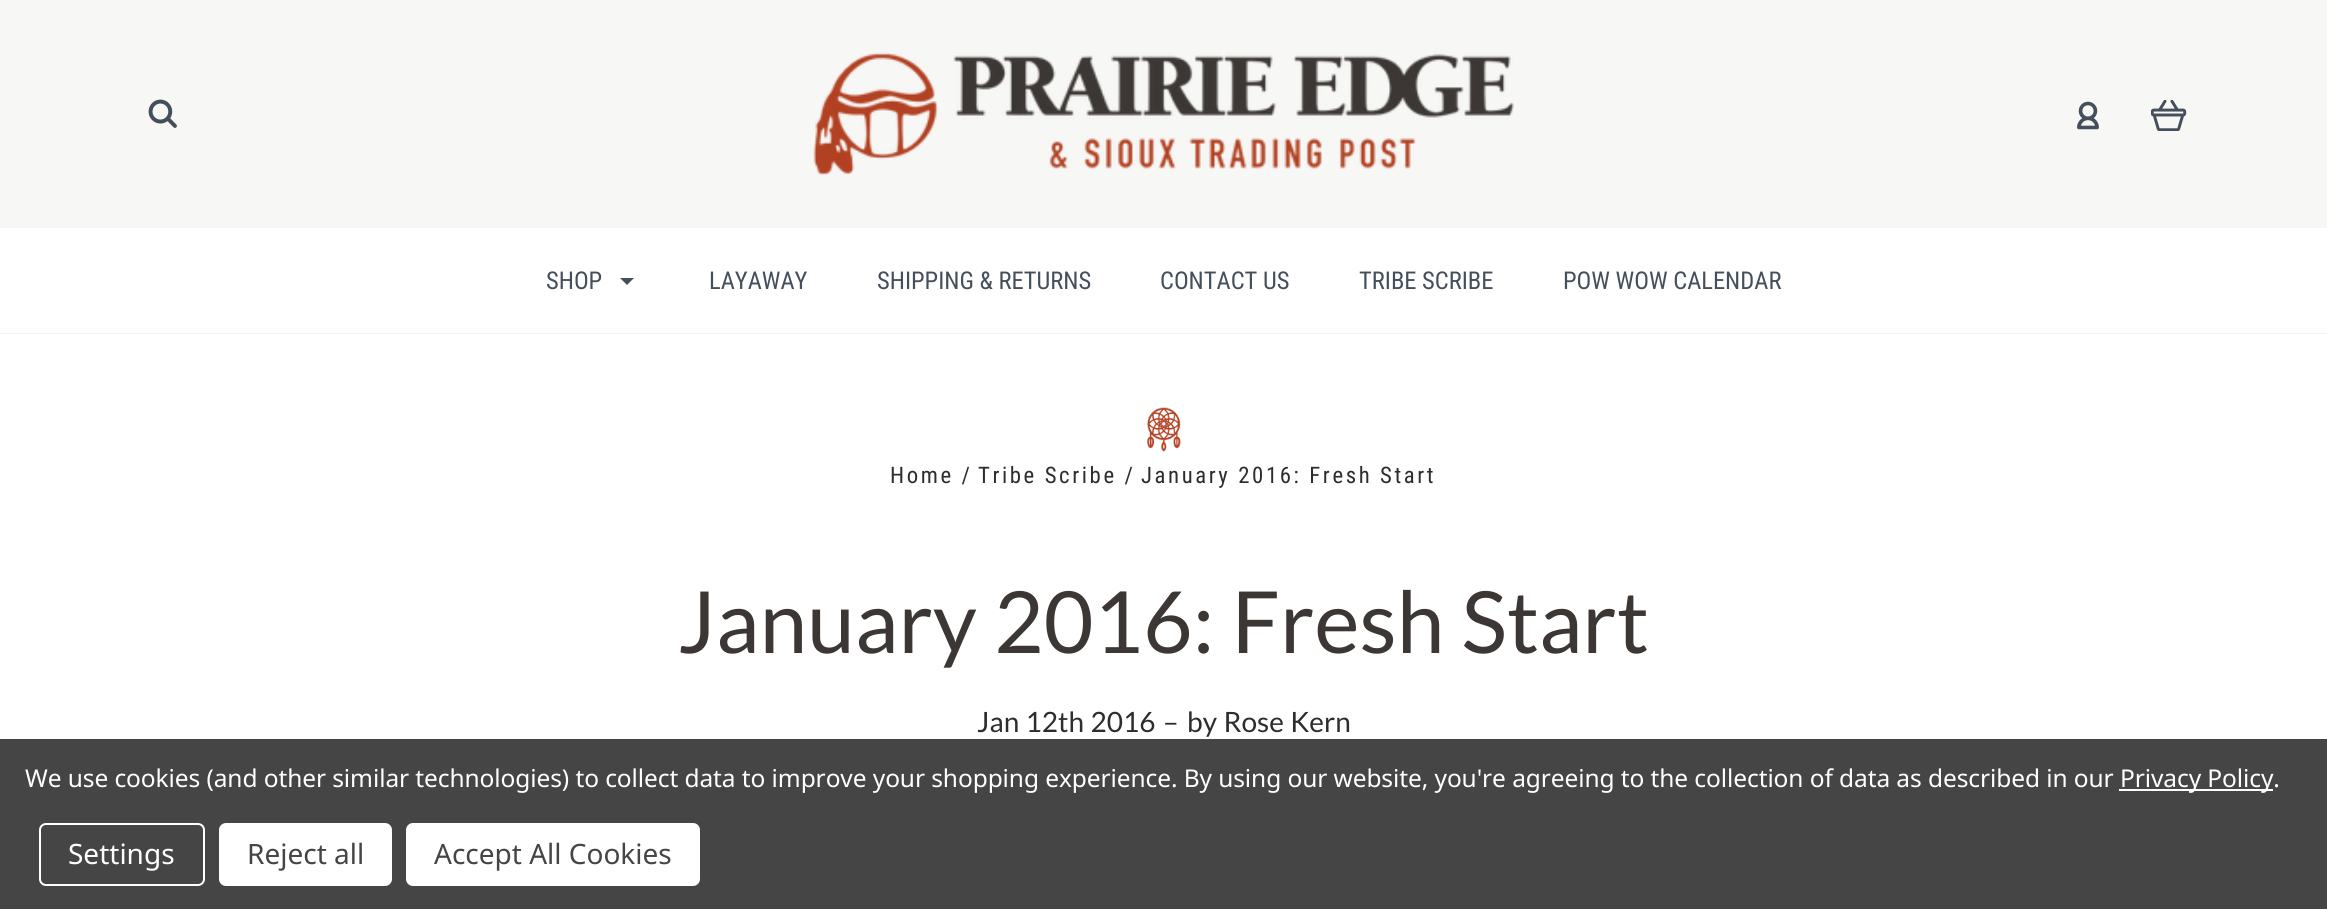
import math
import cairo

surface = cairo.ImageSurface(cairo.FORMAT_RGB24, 2327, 909)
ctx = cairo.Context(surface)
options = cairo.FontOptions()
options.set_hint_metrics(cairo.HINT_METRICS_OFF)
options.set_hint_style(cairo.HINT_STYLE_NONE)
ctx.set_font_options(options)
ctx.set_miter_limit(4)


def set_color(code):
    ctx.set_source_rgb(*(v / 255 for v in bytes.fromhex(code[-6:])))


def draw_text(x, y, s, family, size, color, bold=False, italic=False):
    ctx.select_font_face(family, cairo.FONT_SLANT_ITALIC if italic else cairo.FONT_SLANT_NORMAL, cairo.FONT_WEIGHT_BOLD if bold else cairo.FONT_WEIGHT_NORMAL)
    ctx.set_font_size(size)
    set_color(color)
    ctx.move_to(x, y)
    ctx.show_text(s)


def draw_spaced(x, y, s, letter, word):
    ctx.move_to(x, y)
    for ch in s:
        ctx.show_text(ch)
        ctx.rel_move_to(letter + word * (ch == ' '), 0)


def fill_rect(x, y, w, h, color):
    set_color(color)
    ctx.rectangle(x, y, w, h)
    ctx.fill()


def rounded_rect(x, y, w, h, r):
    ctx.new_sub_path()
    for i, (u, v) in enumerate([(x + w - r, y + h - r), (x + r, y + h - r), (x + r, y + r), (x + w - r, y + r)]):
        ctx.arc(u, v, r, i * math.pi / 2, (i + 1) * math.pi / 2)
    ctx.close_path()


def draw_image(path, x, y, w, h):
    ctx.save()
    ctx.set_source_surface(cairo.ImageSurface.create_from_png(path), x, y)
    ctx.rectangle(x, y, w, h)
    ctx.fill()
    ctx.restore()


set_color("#ffffff")
ctx.paint()
fill_rect(0, 0, 2327, 228, "#f7f7f5")
draw_image("assets/img1.png", 148, 99, 29, 29)
draw_image("assets/img2.png", 813, 52, 701, 123)
draw_image("assets/img3.png", 2077, 101, 22, 29)
draw_image("assets/img4.png", 2151, 100, 36, 31)
set_color("#f2f2f2")
ctx.new_path()
ctx.move_to(0, 332)
ctx.line_to(0, 334)
ctx.line_to(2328, 334)
ctx.line_to(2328, 229)
ctx.line_to(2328, 332)
ctx.close_path()
ctx.fill()
fill_rect(0, 332, 2327, 1, "#ffffff")
draw_text(546, 289, "SHOP", "Roboto Condensed", 24.5, "#454f5b")
ctx.new_path()
ctx.move_to(620, 278)
ctx.line_to(634, 278)
ctx.line_to(627, 285)
ctx.close_path()
ctx.fill()
draw_text(709, 289, "LAYAWAY", "Roboto Condensed", 24.5, "#454f5b")
draw_text(877, 289, "SHIPPING & RETURNS", "Roboto Condensed", 24.5, "#454f5b")
draw_text(1160, 289, "CONTACT US", "Roboto Condensed", 24.5, "#454f5b")
draw_text(1359, 289, "TRIBE SCRIBE", "Roboto Condensed", 24.5, "#454f5b")
draw_text(1563, 289, "POW WOW CALENDAR", "Roboto Condensed", 24.5, "#454f5b")
draw_image("assets/img5.png", 1147, 407, 34, 45)
ctx.set_font_size(22.75)
set_color("#2d2d2d")
draw_spaced(890, 483, "Home /", 2.6, 0)
draw_spaced(978, 483, "Tribe Scribe /", 2.6, 0)
draw_spaced(1141, 483, "January 2016: Fresh Start", 2.6, 0)
ctx.select_font_face("Lato")
ctx.set_font_size(85.75)
set_color("#3c3734")
draw_spaced(678, 653, "January 2016: Fresh Start", 0, 0.5)
ctx.set_font_size(28)
set_color("#2d2d2d")
draw_spaced(977, 732, "Jan 12th 2016", 0, 1)
draw_text(1163, 732, "–", "Lato", 28, "#2d2d2d")
draw_spaced(1187, 732, "by Rose Kern", 0, 1)
fill_rect(0, 739, 2327, 170, "#454545")
ctx.select_font_face("Noto Sans")
ctx.set_font_size(24.5)
set_color("#ffffff")
draw_spaced(25, 787, "We use cookies (and other similar technologies) to collect data to improve your shopping experience. By using our website, you're agreeing to the collection of data as described in our", -0.09, 0)
fill_rect(2119, 789, 154, 2, "#ffffff")
draw_spaced(2120, 787, "Privacy Policy.", -0.09, 0)
rounded_rect(40, 824, 164, 61, 6)
ctx.stroke()
draw_text(68, 864, "Settings", "Noto Sans", 28, "#ffffff")
rounded_rect(219, 823, 173, 63, 7)
ctx.fill()
draw_text(247, 864, "Reject all", "Noto Sans", 28, "#454545")
set_color("#ffffff")
rounded_rect(406, 823, 294, 63, 7)
ctx.fill()
draw_text(434, 864, "Accept All Cookies", "Noto Sans", 28, "#454545")
surface.write_to_png("output.png")
